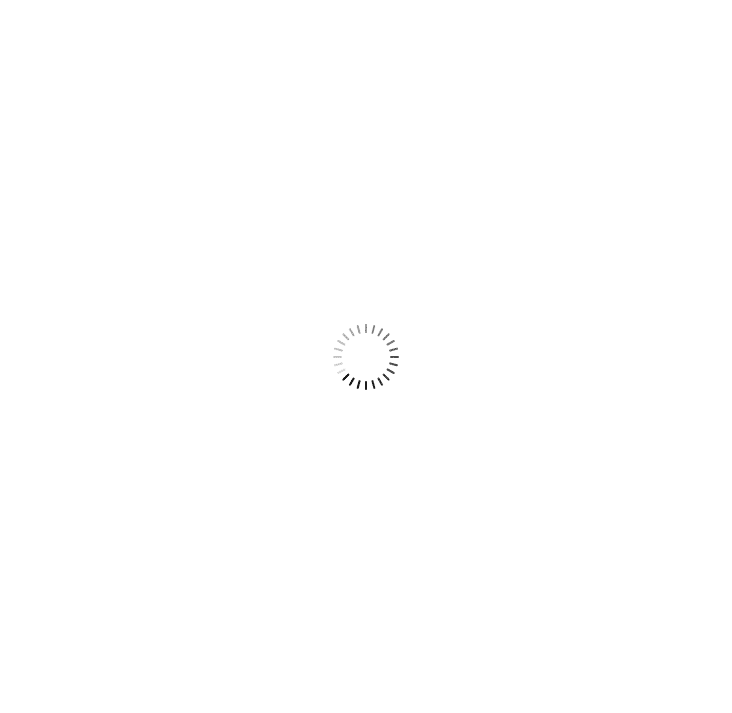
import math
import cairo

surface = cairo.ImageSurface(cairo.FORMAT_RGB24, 732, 713)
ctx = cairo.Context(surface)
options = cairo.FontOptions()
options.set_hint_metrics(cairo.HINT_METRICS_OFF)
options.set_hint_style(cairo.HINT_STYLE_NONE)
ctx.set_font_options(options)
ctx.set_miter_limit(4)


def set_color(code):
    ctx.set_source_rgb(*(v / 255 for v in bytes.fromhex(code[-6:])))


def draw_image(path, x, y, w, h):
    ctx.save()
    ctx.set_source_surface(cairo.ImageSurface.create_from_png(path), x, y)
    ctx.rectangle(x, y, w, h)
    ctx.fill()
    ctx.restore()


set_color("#ffffff")
ctx.paint()
draw_image("assets/img1.png", 333, 324, 66, 66)
surface.write_to_png("output.png")
